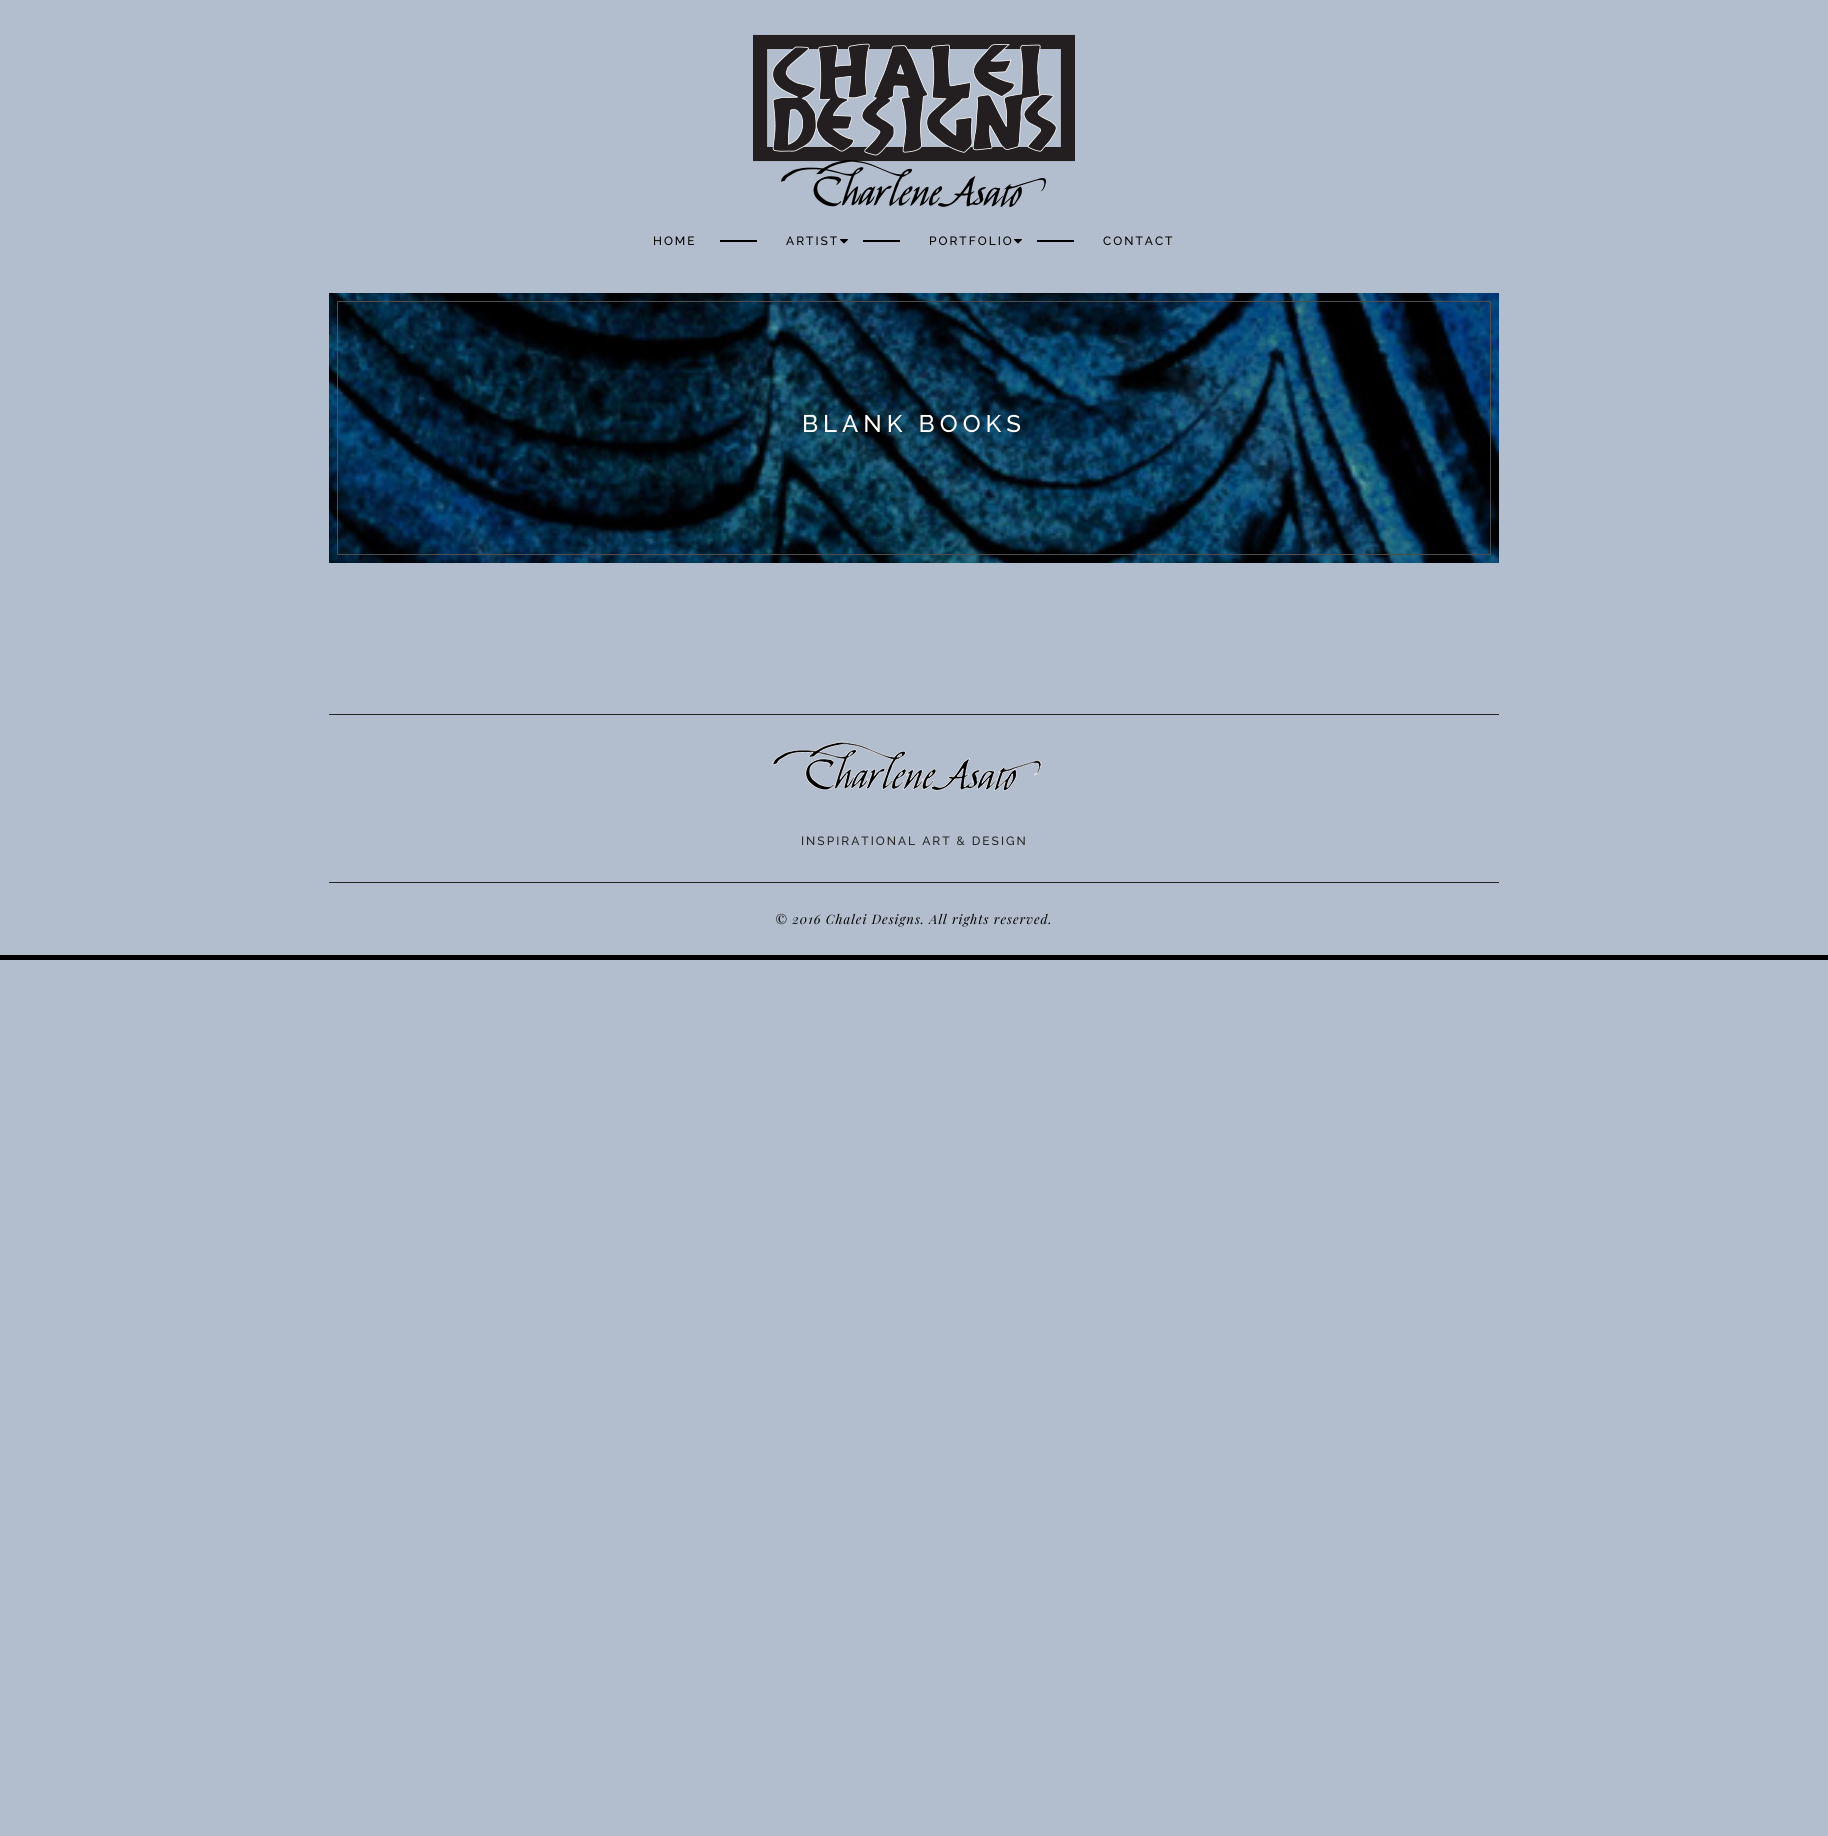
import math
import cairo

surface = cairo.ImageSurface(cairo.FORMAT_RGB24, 1828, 1836)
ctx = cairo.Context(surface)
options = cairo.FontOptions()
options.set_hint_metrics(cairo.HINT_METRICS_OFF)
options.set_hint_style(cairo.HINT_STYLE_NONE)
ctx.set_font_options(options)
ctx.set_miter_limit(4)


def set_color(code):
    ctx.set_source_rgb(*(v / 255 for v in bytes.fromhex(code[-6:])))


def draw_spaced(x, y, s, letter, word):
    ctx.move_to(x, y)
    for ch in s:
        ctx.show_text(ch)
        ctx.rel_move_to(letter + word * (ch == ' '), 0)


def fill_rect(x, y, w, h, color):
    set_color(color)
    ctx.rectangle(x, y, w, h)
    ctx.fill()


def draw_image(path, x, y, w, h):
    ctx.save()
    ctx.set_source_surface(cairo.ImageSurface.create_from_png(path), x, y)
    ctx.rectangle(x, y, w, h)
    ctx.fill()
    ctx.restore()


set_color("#b2bece")
ctx.paint()
draw_image("assets/img1.png", 753, 34, 322, 173)
ctx.select_font_face("Raleway Medium")
ctx.set_font_size(12)
set_color("#000000")
draw_spaced(653, 245, "HOME", 2, 0)
fill_rect(720, 240, 37, 2, "#000000")
draw_spaced(786, 245, "ARTIST", 2, 0)
draw_image("assets/img2.png", 840, 239, 8, 5)
fill_rect(863, 240, 37, 2, "#000000")
draw_spaced(929, 245, "PORTFOLIO", 2, 0)
draw_image("assets/img2.png", 1014, 239, 8, 5)
fill_rect(1037, 240, 37, 2, "#000000")
draw_spaced(1103, 245, "CONTACT", 2, 0)
draw_image("assets/img3.png", 329, 293, 1170, 270)
ctx.rectangle(337.5, 301.5, 1153, 253)
set_color("#4d4d4d")
ctx.set_line_width(1)
ctx.stroke()
ctx.set_font_size(24)
set_color("#ffffff")
draw_spaced(802, 432, "BLANK BOOKS", 5, 0)
fill_rect(0, 955, 1828, 5, "#000000")
fill_rect(329, 714, 1170, 1, "#252525")
draw_image("assets/img4.png", 772, 741, 270, 50)
ctx.set_font_size(12)
draw_spaced(801, 845, "INSPIRATIONAL ART & DESIGN", 2, 0)
fill_rect(329, 882, 1170, 1, "#252525")
ctx.select_font_face("Playfair Display", cairo.FONT_SLANT_ITALIC)
ctx.set_font_size(13)
set_color("#000000")
draw_spaced(775, 924, "© 2016 Chalei Designs. All rights reserved.", 1, 0)
surface.write_to_png("output.png")
